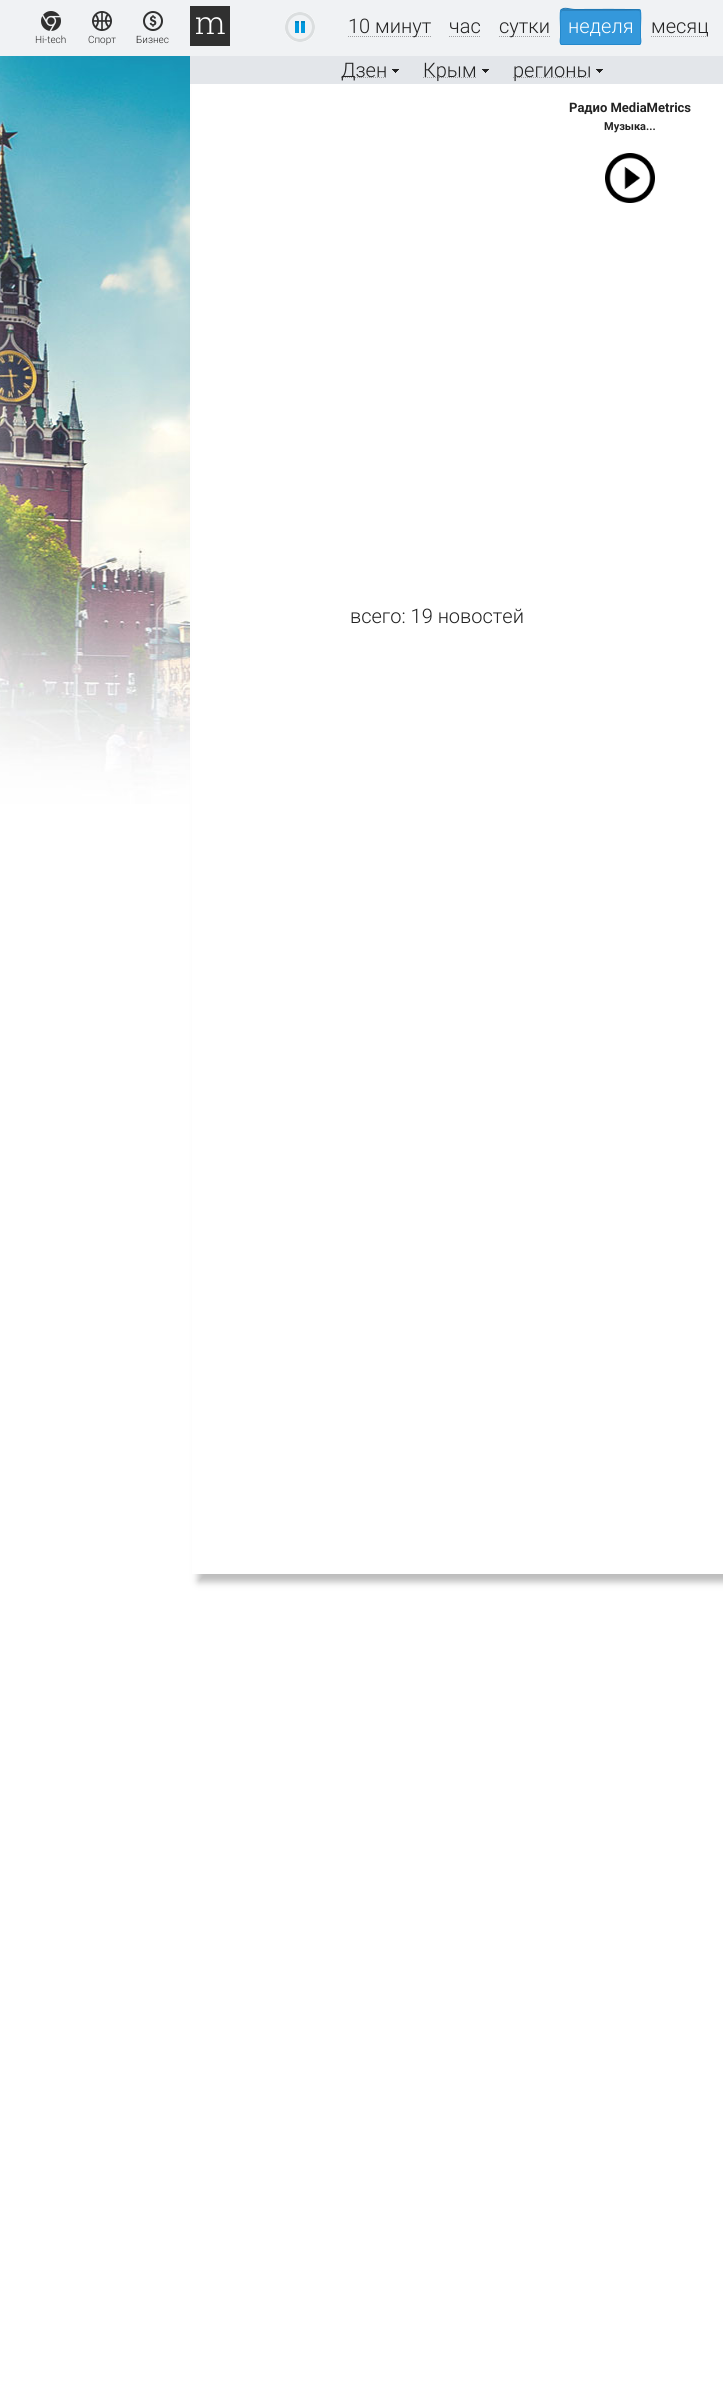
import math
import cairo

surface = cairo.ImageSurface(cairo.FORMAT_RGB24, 723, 2381)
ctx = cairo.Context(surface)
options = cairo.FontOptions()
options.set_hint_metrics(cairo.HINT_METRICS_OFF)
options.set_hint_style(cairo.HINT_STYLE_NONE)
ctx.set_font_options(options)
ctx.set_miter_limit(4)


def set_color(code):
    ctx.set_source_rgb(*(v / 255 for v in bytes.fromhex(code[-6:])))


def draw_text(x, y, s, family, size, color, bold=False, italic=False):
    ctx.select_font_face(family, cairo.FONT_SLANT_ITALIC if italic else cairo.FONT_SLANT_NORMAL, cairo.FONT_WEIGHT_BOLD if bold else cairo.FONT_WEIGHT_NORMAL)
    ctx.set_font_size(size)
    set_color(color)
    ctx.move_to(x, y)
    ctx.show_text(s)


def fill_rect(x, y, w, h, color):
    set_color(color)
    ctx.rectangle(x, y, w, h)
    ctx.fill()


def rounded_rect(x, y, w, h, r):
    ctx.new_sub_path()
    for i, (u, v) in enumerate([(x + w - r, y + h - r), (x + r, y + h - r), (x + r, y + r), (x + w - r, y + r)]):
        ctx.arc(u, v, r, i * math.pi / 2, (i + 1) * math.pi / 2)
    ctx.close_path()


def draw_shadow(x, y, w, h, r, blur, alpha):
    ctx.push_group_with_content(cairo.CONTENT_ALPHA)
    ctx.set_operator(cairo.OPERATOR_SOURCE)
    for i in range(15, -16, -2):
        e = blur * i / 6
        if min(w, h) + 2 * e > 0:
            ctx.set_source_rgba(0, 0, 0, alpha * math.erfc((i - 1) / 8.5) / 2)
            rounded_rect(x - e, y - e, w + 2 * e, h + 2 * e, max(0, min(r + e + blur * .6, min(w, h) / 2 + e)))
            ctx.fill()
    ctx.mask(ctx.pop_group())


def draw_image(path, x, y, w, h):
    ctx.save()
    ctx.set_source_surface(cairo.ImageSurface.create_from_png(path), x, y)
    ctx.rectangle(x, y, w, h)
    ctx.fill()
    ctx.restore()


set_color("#ffffff")
ctx.paint()
draw_image("assets/img1.png", 0, 56, 190, 748)
set_color("#7a7a7a")
draw_shadow(198, 8, 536, 1574, 0, 3.5, 0.5)
fill_rect(0, 0, 723, 56, "#f0f2f4")
draw_image("assets/img2.png", 190, 6, 40, 40)
draw_image("assets/img3.png", 285, 12, 30, 30)
ctx.new_path()
ctx.move_to(348, 36.5)
ctx.line_to(431, 36.5)
set_color("#9fa0a2")
ctx.set_line_width(1)
ctx.set_dash([1, 1])
ctx.stroke()
draw_text(348, 33, "10 минут", "Roboto Light", 20, "#232323")
ctx.new_path()
ctx.move_to(449, 36.5)
ctx.line_to(481, 36.5)
set_color("#9fa0a2")
ctx.stroke()
draw_text(449, 33, "час", "Roboto Light", 20, "#232323")
ctx.new_path()
ctx.move_to(499, 36.5)
ctx.line_to(550, 36.5)
set_color("#9fa0a2")
ctx.stroke()
draw_text(499, 33, "сутки", "Roboto Light", 20, "#232323")
set_color("#3498db")
rounded_rect(560, 9, 81, 36, 2)
ctx.fill()
set_color("#2d84bf")
ctx.set_fill_rule(cairo.FILL_RULE_EVEN_ODD)
ctx.new_path()
ctx.move_to(562, 11)
ctx.line_to(626, 11)
ctx.curve_to(634, 11, 638, 10, 639, 11)
ctx.curve_to(640, 11, 640, 13, 640, 17)
ctx.curve_to(640, 6, 641, 10, 626, 10)
ctx.line_to(575, 10)
ctx.curve_to(568, 10, 561, 6, 561, 13)
ctx.close_path()
ctx.move_to(561, 43)
ctx.line_to(561, 39)
ctx.close_path()
ctx.fill()
ctx.new_path()
ctx.move_to(561, 10)
ctx.curve_to(564, 6.5, 570, 9.5, 575, 9.5)
ctx.curve_to(581.5, 9.5, 639, 9, 640, 10)
set_color("#1f76b1")
ctx.set_dash([])
ctx.stroke()
ctx.new_path()
ctx.move_to(640, 10)
ctx.curve_to(641.5, 11.5, 640.5, 24.5, 640.5, 27)
ctx.line_to(640.5, 37.5)
ctx.curve_to(640.5, 37.5, 642, 44.5, 639, 44.5)
ctx.line_to(562, 44.5)
ctx.curve_to(559, 44.5, 560.5, 37.5, 560.5, 37.5)
ctx.line_to(560.5, 27)
ctx.curve_to(560.5, 24.5, 559.5, 11.5, 561, 10)
set_color("#2488cb")
ctx.stroke()
draw_text(568, 33, "неделя", "Roboto Light", 20, "#ffffff")
ctx.new_path()
ctx.move_to(651, 36.5)
ctx.line_to(709, 36.5)
set_color("#9fa0a2")
ctx.set_dash([1, 1])
ctx.stroke()
draw_text(651, 33, "месяц", "Roboto Light", 20, "#232323")
draw_image("assets/img4.png", 41, 11, 20, 20)
draw_text(35, 43, "Hi-tech", "Roboto Light", 10, "#232323")
draw_image("assets/img5.png", 92, 11, 20, 20)
draw_text(88, 43, "Спорт", "Roboto Light", 10, "#232323")
draw_image("assets/img6.png", 143, 11, 20, 20)
draw_text(136, 43, "Бизнес", "Roboto Light", 10, "#232323")
fill_rect(190, 56, 533, 28, "#e3e6ea")
ctx.new_path()
ctx.move_to(341, 77.5)
ctx.line_to(387, 77.5)
set_color("#9fa0a2")
ctx.stroke()
draw_text(341, 77, "Дзен", "Roboto Light", 20, "#232323")
draw_image("assets/img7.png", 392, 69, 7, 4)
ctx.new_path()
ctx.move_to(423, 77.5)
ctx.line_to(477, 77.5)
set_color("#9fa0a2")
ctx.stroke()
draw_text(423, 77, "Крым", "Roboto Light", 20, "#232323")
draw_image("assets/img7.png", 482, 69, 7, 4)
ctx.new_path()
ctx.move_to(513, 77.5)
ctx.line_to(591, 77.5)
set_color("#9fa0a2")
ctx.stroke()
draw_text(513, 77, "регионы", "Roboto Light", 20, "#232323")
draw_image("assets/img7.png", 596, 69, 7, 4)
fill_rect(192, 84, 531, 1490, "#ffffff")
draw_text(569, 112, "Радио MediaMetrics", "Roboto", 13, "#232323", bold=True)
draw_text(604, 130, "Музыка...", "Roboto", 11, "#232323", bold=True)
draw_image("assets/img8.png", 605, 153, 50, 50)
draw_text(350, 623, "всего: 19 новостей", "Roboto Light", 20, "#232323")
surface.write_to_png("output.png")
